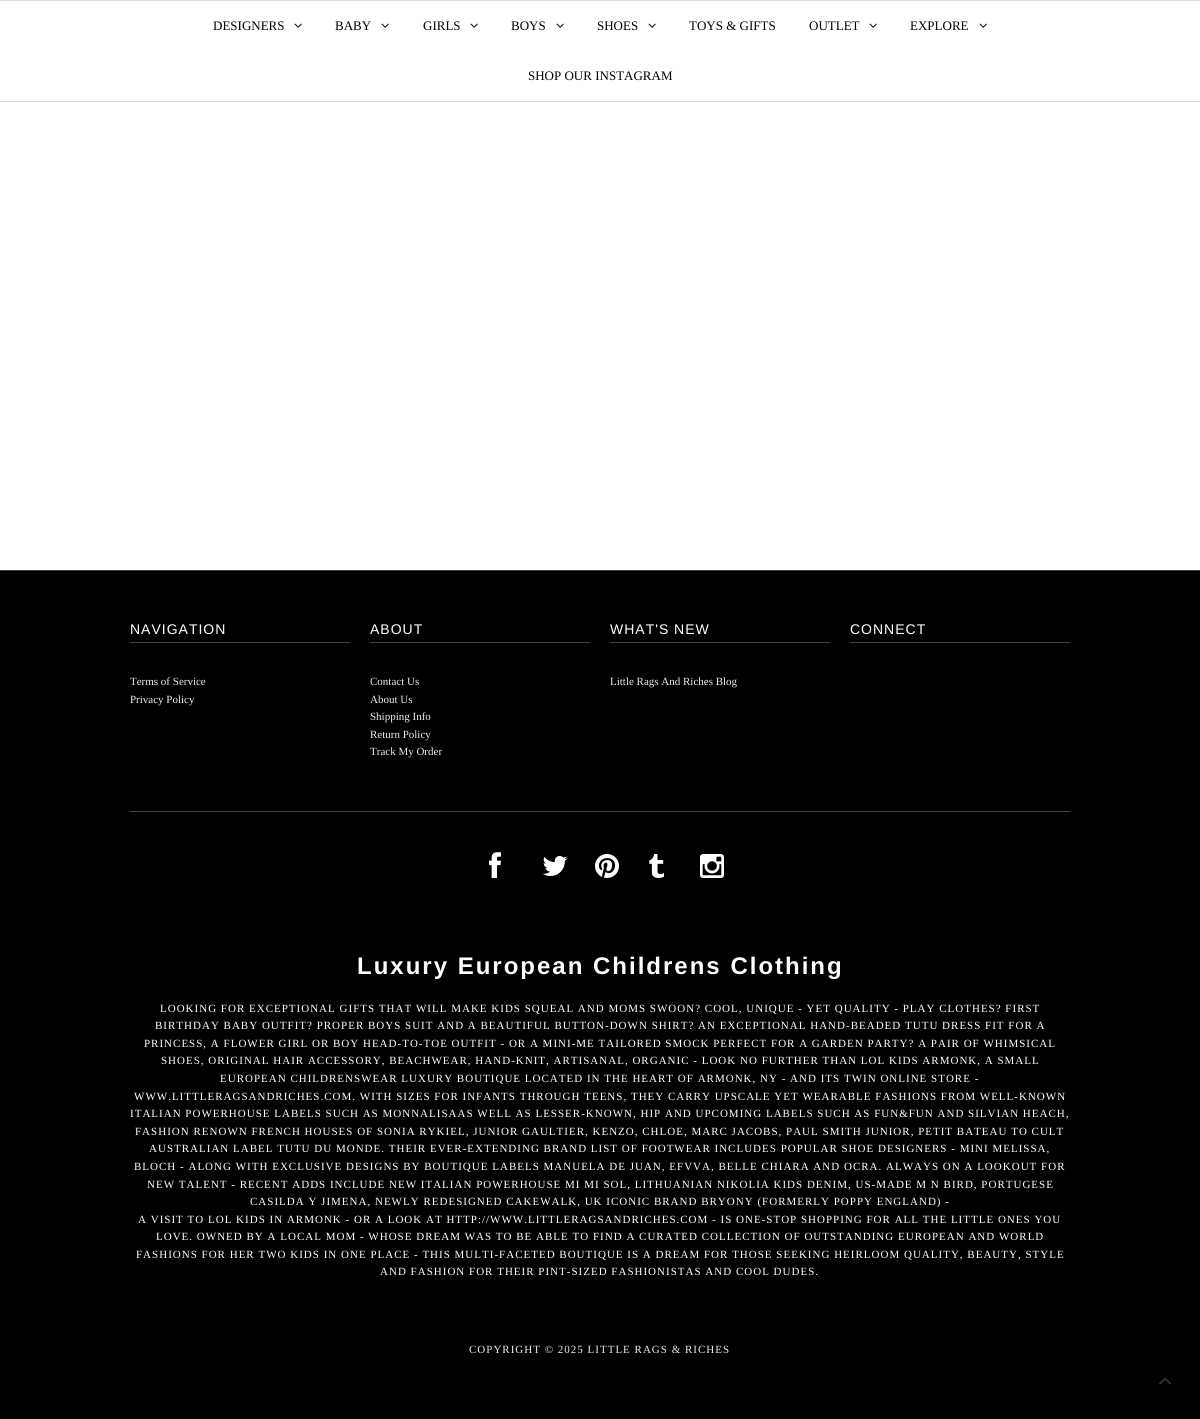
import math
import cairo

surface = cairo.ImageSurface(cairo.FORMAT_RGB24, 1200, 1419)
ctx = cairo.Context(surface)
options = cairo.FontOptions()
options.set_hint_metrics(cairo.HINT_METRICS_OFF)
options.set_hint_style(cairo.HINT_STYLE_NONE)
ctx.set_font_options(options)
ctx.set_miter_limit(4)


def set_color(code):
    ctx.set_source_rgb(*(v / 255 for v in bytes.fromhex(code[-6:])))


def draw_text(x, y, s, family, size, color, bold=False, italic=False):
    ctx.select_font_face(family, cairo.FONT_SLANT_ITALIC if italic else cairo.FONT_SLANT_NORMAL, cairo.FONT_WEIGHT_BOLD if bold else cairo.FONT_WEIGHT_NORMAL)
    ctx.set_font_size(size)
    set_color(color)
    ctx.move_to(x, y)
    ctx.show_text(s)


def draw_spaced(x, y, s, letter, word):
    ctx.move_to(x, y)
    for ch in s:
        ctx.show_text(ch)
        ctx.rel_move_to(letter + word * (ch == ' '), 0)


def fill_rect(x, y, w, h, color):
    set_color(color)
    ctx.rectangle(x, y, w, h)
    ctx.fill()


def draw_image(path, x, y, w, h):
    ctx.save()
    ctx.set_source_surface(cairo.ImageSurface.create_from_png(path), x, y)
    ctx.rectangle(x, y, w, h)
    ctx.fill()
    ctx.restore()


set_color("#ffffff")
ctx.paint()
fill_rect(0, 0, 1200, 1, "#d9d9d9")
fill_rect(0, 101, 1200, 1, "#d9d9d9")
draw_text(213, 30, "DESIGNERS", "Liberation Serif", 13, "#000000")
draw_image("assets/img1.png", 294, 23, 8, 5)
draw_text(335, 30, "BABY", "Liberation Serif", 13, "#000000")
draw_image("assets/img1.png", 381, 23, 8, 5)
draw_text(423, 30, "GIRLS", "Liberation Serif", 13, "#000000")
draw_image("assets/img1.png", 470, 23, 8, 5)
draw_text(511, 30, "BOYS", "Liberation Serif", 13, "#000000")
draw_image("assets/img1.png", 556, 23, 8, 5)
draw_text(597, 30, "SHOES", "Liberation Serif", 13, "#000000")
draw_image("assets/img1.png", 648, 23, 8, 5)
draw_text(689, 30, "TOYS & GIFTS", "Liberation Serif", 13, "#000000")
draw_text(809, 30, "OUTLET", "Liberation Serif", 13, "#000000")
draw_image("assets/img1.png", 869, 23, 8, 5)
draw_text(910, 30, "EXPLORE", "Liberation Serif", 13, "#000000")
draw_image("assets/img1.png", 979, 23, 8, 5)
draw_text(528, 80, "SHOP OUR INSTAGRAM", "Liberation Serif", 13, "#000000")
fill_rect(0, 571, 1200, 848, "#000000")
fill_rect(0, 570, 1200, 1, "#444444")
fill_rect(130, 642, 220, 1, "#444444")
ctx.select_font_face("Liberation Sans")
ctx.set_font_size(14)
set_color("#ffffff")
draw_spaced(130, 634, "NAVIGATION", 1, 0)
draw_text(130, 685, "Terms of Service", "Liberation Serif", 11, "#ececec")
draw_text(130, 703, "Privacy Policy", "Liberation Serif", 11, "#ececec")
fill_rect(370, 642, 220, 1, "#444444")
ctx.select_font_face("Liberation Sans")
ctx.set_font_size(14)
set_color("#ffffff")
draw_spaced(370, 634, "ABOUT", 1, 0)
draw_text(370, 685, "Contact Us", "Liberation Serif", 11, "#ececec")
draw_text(370, 703, "About Us", "Liberation Serif", 11, "#ececec")
draw_text(370, 720, "Shipping Info", "Liberation Serif", 11, "#ececec")
draw_text(370, 738, "Return Policy", "Liberation Serif", 11, "#ececec")
draw_text(370, 755, "Track My Order", "Liberation Serif", 11, "#ececec")
fill_rect(610, 642, 220, 1, "#444444")
ctx.select_font_face("Liberation Sans")
ctx.set_font_size(14)
set_color("#ffffff")
draw_spaced(610, 634, "WHAT'S NEW", 1, 0)
draw_text(610, 685, "Little Rags And Riches Blog", "Liberation Serif", 11, "#ececec")
fill_rect(850, 642, 220, 1, "#444444")
ctx.select_font_face("Liberation Sans")
ctx.set_font_size(14)
set_color("#ffffff")
draw_spaced(850, 634, "CONNECT", 1, 0)
fill_rect(130, 811, 940, 1, "#444444")
draw_image("assets/img2.png", 489, 852, 12, 26)
draw_image("assets/img3.png", 542, 856, 26, 20)
draw_image("assets/img4.png", 595, 854, 24, 24)
draw_image("assets/img5.png", 649, 854, 15, 24)
draw_image("assets/img6.png", 700, 854, 24, 24)
ctx.select_font_face("Liberation Sans", cairo.FONT_SLANT_NORMAL, cairo.FONT_WEIGHT_BOLD)
ctx.set_font_size(24)
set_color("#ffffff")
draw_spaced(357, 974, "Luxury European Childrens Clothing", 2, 0)
ctx.select_font_face("Liberation Serif")
ctx.set_font_size(11)
draw_spaced(160, 1012, "LOOKING FOR EXCEPTIONAL GIFTS THAT WILL MAKE KIDS SQUEAL AND MOMS SWOON? COOL, UNIQUE - YET QUALITY - PLAY CLOTHES? FIRST", 1, 0)
draw_spaced(155, 1029, "BIRTHDAY BABY OUTFIT? PROPER BOYS SUIT AND A BEAUTIFUL BUTTON-DOWN SHIRT? AN EXCEPTIONAL HAND-BEADED TUTU DRESS FIT FOR A", 1, 0)
draw_spaced(144, 1047, "PRINCESS, A FLOWER GIRL OR BOY HEAD-TO-TOE OUTFIT - OR A MINI-ME TAILORED SMOCK PERFECT FOR A GARDEN PARTY? A PAIR OF WHIMSICAL", 1, 0)
draw_spaced(161, 1064, "SHOES, ORIGINAL HAIR ACCESSORY, BEACHWEAR, HAND-KNIT, ARTISANAL, ORGANIC - LOOK NO FURTHER THAN LOL KIDS ARMONK, A SMALL", 1, 0)
draw_spaced(220, 1082, "EUROPEAN CHILDRENSWEAR LUXURY BOUTIQUE LOCATED IN THE HEART OF ARMONK, NY - AND ITS TWIN ONLINE STORE -", 1, 0)
draw_spaced(134, 1100, "WWW.LITTLERAGSANDRICHES.COM. WITH SIZES FOR INFANTS THROUGH TEENS, THEY CARRY UPSCALE YET WEARABLE FASHIONS FROM WELL-KNOWN", 1, 0)
draw_spaced(130, 1117, "ITALIAN POWERHOUSE LABELS SUCH AS MONNALISAAS WELL AS LESSER-KNOWN, HIP AND UPCOMING LABELS SUCH AS FUN&FUN AND SILVIAN HEACH,", 1, 0)
draw_spaced(135, 1135, "FASHION RENOWN FRENCH HOUSES OF SONIA RYKIEL, JUNIOR GAULTIER, KENZO, CHLOE, MARC JACOBS, PAUL SMITH JUNIOR, PETIT BATEAU TO CULT", 1, 0)
draw_spaced(149, 1152, "AUSTRALIAN LABEL TUTU DU MONDE. THEIR EVER-EXTENDING BRAND LIST OF FOOTWEAR INCLUDES POPULAR SHOE DESIGNERS - MINI MELISSA,", 1, 0)
draw_spaced(134, 1170, "BLOCH - ALONG WITH EXCLUSIVE DESIGNS BY BOUTIQUE LABELS MANUELA DE JUAN, EFVVA, BELLE CHIARA AND OCRA. ALWAYS ON A LOOKOUT FOR", 1, 0)
draw_spaced(147, 1188, "NEW TALENT - RECENT ADDS INCLUDE NEW ITALIAN POWERHOUSE MI MI SOL, LITHUANIAN NIKOLIA KIDS DENIM, US-MADE M N BIRD, PORTUGESE", 1, 0)
draw_spaced(250, 1205, "CASILDA Y JIMENA, NEWLY REDESIGNED CAKEWALK, UK ICONIC BRAND BRYONY (FORMERLY POPPY ENGLAND) -", 1, 0)
draw_spaced(138, 1223, "A VISIT TO LOL KIDS IN ARMONK - OR A LOOK AT HTTP://WWW.LITTLERAGSANDRICHES.COM - IS ONE-STOP SHOPPING FOR ALL THE LITTLE ONES YOU", 1, 0)
draw_spaced(156, 1240, "LOVE. OWNED BY A LOCAL MOM - WHOSE DREAM WAS TO BE ABLE TO FIND A CURATED COLLECTION OF OUTSTANDING EUROPEAN AND WORLD", 1, 0)
draw_spaced(136, 1258, "FASHIONS FOR HER TWO KIDS IN ONE PLACE - THIS MULTI-FACETED BOUTIQUE IS A DREAM FOR THOSE SEEKING HEIRLOOM QUALITY, BEAUTY, STYLE", 1, 0)
draw_spaced(380, 1275, "AND FASHION FOR THEIR PINT-SIZED FASHIONISTAS AND COOL DUDES.", 1, 0)
set_color("#ececec")
draw_spaced(469, 1353, "COPYRIGHT © 2025 LITTLE RAGS & RICHES", 1, 0)
draw_image("assets/img7.png", 1159, 1377, 13, 8)
surface.write_to_png("output.png")
